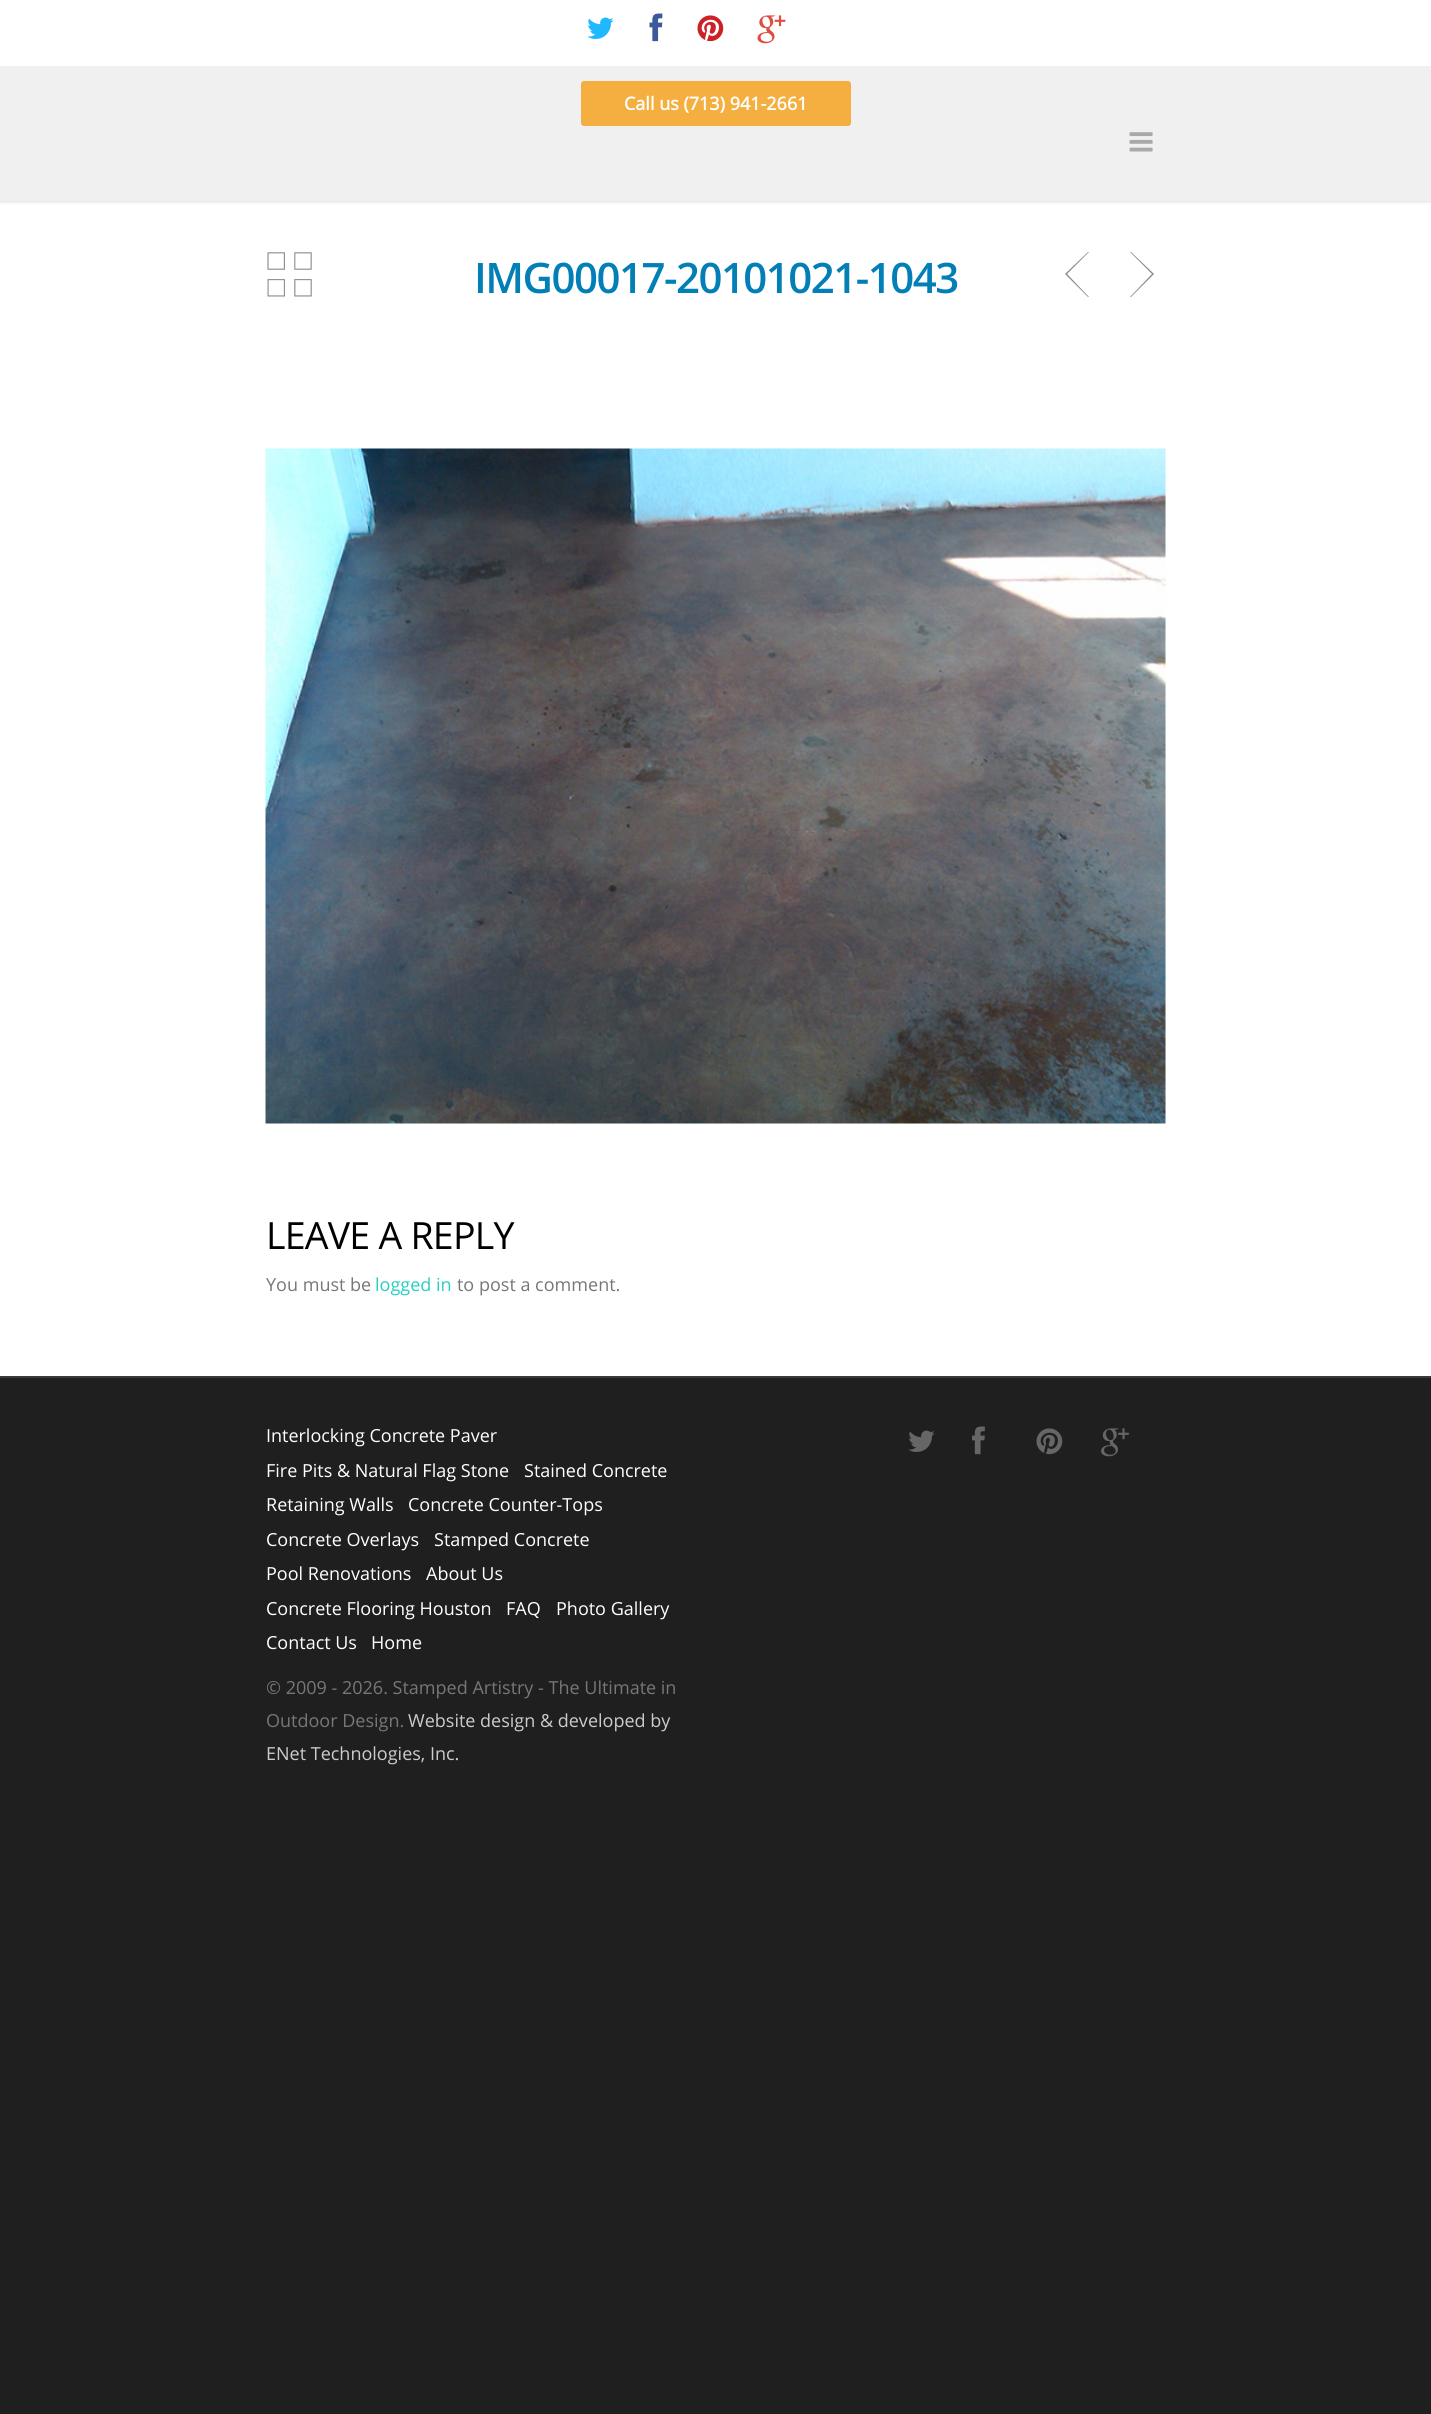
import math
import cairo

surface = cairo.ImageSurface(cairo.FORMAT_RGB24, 1431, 2414)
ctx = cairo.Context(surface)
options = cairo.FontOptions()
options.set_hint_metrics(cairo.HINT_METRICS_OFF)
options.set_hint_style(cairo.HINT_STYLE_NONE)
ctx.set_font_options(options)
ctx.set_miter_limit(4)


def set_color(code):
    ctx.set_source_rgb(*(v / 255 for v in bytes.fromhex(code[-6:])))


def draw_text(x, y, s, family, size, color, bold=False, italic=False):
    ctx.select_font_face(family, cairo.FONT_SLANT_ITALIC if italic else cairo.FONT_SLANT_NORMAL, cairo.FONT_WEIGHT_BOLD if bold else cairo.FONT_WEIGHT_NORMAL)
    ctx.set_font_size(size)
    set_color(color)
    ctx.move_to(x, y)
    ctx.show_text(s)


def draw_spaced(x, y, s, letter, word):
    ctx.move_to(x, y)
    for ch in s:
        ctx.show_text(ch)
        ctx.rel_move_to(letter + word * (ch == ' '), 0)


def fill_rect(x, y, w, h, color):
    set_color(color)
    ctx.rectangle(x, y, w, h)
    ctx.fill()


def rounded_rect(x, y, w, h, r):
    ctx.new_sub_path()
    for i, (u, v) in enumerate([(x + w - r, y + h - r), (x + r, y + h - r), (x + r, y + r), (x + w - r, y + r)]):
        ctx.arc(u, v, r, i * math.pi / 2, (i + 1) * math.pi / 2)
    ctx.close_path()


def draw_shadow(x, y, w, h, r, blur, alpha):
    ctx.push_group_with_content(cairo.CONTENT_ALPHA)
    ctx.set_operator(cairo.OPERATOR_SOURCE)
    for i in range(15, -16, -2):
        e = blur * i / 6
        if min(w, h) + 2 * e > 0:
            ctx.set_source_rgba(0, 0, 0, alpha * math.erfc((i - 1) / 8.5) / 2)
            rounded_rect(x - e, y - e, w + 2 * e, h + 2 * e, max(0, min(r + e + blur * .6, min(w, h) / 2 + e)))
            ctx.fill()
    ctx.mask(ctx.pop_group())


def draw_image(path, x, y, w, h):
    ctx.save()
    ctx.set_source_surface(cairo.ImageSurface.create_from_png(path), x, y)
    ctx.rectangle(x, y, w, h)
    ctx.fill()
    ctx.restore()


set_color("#1f1f1f")
ctx.paint()
fill_rect(0, 201, 1431, 1175, "#ffffff")
set_color("#000000")
draw_shadow(0, 51, 1431, 150, 0, 2, 0.22)
fill_rect(0, 0, 1431, 66, "#ffffff")
fill_rect(0, 66, 1431, 135, "#f0f0f0")
draw_image("assets/img1.png", 1129, 132, 24, 20)
draw_image("assets/img2.png", 587, 17, 27, 22)
draw_image("assets/img3.png", 649, 13, 14, 29)
draw_image("assets/img4.png", 697, 15, 27, 27)
draw_image("assets/img5.png", 757, 15, 29, 29)
set_color("#f5af40")
rounded_rect(581, 81, 270, 45, 3)
ctx.fill()
draw_text(624, 110, "Call us (713) 941-2661", "Open Sans", 18, "#ffffff", bold=True)
draw_image("assets/img6.png", 267, 252, 45, 45)
set_color("#888888")
ctx.new_path()
ctx.move_to(1089, 252)
ctx.line_to(1088, 252)
ctx.line_to(1065, 274)
ctx.line_to(1088, 297)
ctx.line_to(1089, 297)
ctx.line_to(1067, 274)
ctx.close_path()
ctx.fill()
ctx.new_path()
ctx.move_to(1130, 252)
ctx.line_to(1131, 252)
ctx.line_to(1154, 274)
ctx.line_to(1131, 297)
ctx.line_to(1130, 297)
ctx.line_to(1152, 274)
ctx.close_path()
ctx.fill()
ctx.select_font_face("Open Sans SemiBold")
ctx.set_font_size(42)
set_color("#027fb7")
draw_spaced(474, 293, "IMG00017-20101021-1043", -1.5, 0)
draw_image("assets/img7.png", 265, 448, 901, 676)
ctx.select_font_face("Open Sans")
ctx.set_font_size(37.5)
set_color("#000000")
draw_spaced(266, 1249, "LEAVE A REPLY", -0.75, 0)
draw_text(266, 1291, "You must be", "Open Sans", 18, "#777777")
draw_text(375, 1291, "logged in", "Open Sans", 18, "#27cfc3")
draw_text(457, 1291, "to post a comment.", "Open Sans", 18, "#777777")
fill_rect(0, 1376, 1431, 2, "#3a3a3a")
draw_text(266, 1442, "Interlocking Concrete Paver", "Open Sans", 18, "#ffffff")
draw_text(266, 1477, "Fire Pits & Natural Flag Stone", "Open Sans", 18, "#ffffff")
draw_text(524, 1477, "Stained Concrete", "Open Sans", 18, "#ffffff")
draw_text(266, 1511, "Retaining Walls", "Open Sans", 18, "#ffffff")
draw_text(408, 1511, "Concrete Counter-Tops", "Open Sans", 18, "#ffffff")
draw_text(266, 1546, "Concrete Overlays", "Open Sans", 18, "#ffffff")
draw_text(434, 1546, "Stamped Concrete", "Open Sans", 18, "#ffffff")
draw_text(266, 1580, "Pool Renovations", "Open Sans", 18, "#ffffff")
draw_text(426, 1580, "About Us", "Open Sans", 18, "#ffffff")
draw_text(266, 1615, "Concrete Flooring Houston", "Open Sans", 18, "#ffffff")
draw_text(506, 1615, "FAQ", "Open Sans", 18, "#ffffff")
draw_text(556, 1615, "Photo Gallery", "Open Sans", 18, "#ffffff")
draw_text(266, 1649, "Contact Us", "Open Sans", 18, "#ffffff")
draw_text(371, 1649, "Home", "Open Sans", 18, "#ffffff")
draw_text(266, 1694, "© 2009 - 2026. Stamped Artistry - The Ultimate in", "Open Sans", 18, "#777777")
draw_text(266, 1727, "Outdoor Design.", "Open Sans", 18, "#777777")
draw_text(408, 1727, "Website design & developed by", "Open Sans", 18, "#cccccc")
draw_text(266, 1760, "ENet Technologies, Inc.", "Open Sans", 18, "#cccccc")
draw_image("assets/img8.png", 908, 1430, 27, 22)
draw_image("assets/img9.png", 972, 1426, 13, 29)
draw_image("assets/img10.png", 1036, 1428, 27, 27)
draw_image("assets/img11.png", 1101, 1428, 28, 29)
surface.write_to_png("output.png")
